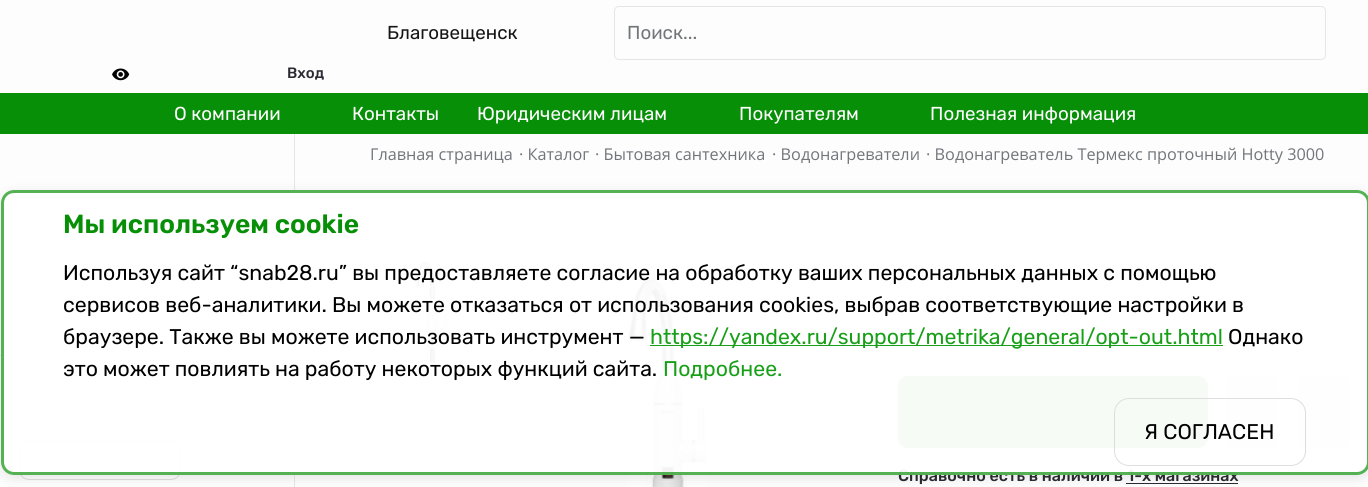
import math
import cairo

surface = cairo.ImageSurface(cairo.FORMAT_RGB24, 1368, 487)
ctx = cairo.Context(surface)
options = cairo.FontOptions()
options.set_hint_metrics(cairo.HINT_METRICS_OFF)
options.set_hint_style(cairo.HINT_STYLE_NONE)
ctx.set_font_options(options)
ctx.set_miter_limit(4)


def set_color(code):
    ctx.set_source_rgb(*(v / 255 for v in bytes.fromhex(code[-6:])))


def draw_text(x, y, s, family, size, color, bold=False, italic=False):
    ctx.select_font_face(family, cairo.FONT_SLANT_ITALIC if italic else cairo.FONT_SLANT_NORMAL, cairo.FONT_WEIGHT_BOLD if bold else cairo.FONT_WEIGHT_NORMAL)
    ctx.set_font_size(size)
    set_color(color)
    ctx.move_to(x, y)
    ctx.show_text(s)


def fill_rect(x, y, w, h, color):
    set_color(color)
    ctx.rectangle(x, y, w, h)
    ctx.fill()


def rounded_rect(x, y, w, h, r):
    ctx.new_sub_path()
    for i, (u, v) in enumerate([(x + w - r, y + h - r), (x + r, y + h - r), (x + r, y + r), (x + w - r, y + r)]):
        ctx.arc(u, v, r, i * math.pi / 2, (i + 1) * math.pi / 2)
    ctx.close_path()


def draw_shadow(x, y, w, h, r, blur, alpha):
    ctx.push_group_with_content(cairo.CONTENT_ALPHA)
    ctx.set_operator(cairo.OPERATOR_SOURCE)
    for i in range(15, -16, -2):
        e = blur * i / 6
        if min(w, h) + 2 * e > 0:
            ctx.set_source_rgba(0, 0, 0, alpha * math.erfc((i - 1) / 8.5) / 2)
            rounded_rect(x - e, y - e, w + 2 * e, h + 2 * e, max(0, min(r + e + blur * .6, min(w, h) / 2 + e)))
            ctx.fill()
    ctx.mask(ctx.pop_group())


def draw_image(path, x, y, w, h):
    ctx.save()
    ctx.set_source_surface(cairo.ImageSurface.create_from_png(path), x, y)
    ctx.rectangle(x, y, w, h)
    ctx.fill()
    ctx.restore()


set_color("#fdfdfd")
ctx.paint()
draw_text(387, 39, "Благовещенск", "Rubik", 18.75, "#171617")
rounded_rect(614.5, 6.5, 711, 53, 4.5)
set_color("#e6e6e6")
ctx.set_line_width(1)
ctx.stroke()
draw_text(627, 39, "Поиск...", "Rubik", 18.75, "#72767b")
draw_image("assets/img1.png", 112, 68, 18, 13)
draw_text(287, 78, "Вход", "Rubik Medium", 15, "#2c2b33")
fill_rect(0, 93, 1368, 41, "#088f08")
draw_text(174, 120, "О компании", "Rubik", 18.75, "#ffffff")
draw_text(352, 120, "Контакты", "Rubik", 18.75, "#ffffff")
draw_text(477, 120, "Юридическим лицам", "Rubik", 18.75, "#ffffff")
draw_text(739, 120, "Покупателям", "Rubik", 18.75, "#ffffff")
draw_text(930, 120, "Полезная информация", "Rubik", 18.75, "#ffffff")
fill_rect(294, 134, 1, 353, "#e6e6e6")
fill_rect(0, 355, 294, 1, "#e6e6e6")
rounded_rect(19.5, 441.5, 161, 38, 9.5)
set_color("#dedede")
ctx.stroke()
draw_text(370, 160, "Главная страница", "Open Sans", 16.25, "#72767b")
draw_text(519, 160, "· Каталог", "Open Sans", 16.25, "#72767b")
draw_text(595, 160, "· Бытовая сантехника", "Open Sans", 16.25, "#72767b")
draw_text(772, 160, "· Водонагреватели", "Open Sans", 16.25, "#72767b")
draw_text(926, 160, "· Водонагреватель Термекс проточный Hotty 3000", "Open Sans", 16.25, "#72767b")
draw_image("assets/img2.png", 416, 260, 33, 105)
draw_image("assets/img3.png", 627, 278, 80, 209)
set_color("#68c068")
rounded_rect(898.5, 376.5, 309, 71, 9.5)
ctx.fill_preserve()
ctx.stroke()
set_color("#e6e6e6")
rounded_rect(1226.5, 376.5, 52, 71, 9.5)
ctx.fill_preserve()
ctx.stroke()
rounded_rect(1298.5, 376.5, 51, 71, 9.5)
ctx.fill_preserve()
ctx.stroke()
draw_text(898, 481, "Cправочно есть в наличии в 1-х магазинах", "Rubik Medium", 16.1, "#2c2b33")
fill_rect(1126, 483, 112, 1, "#2c2b33")
ctx.save()
ctx.set_fill_rule(cairo.FILL_RULE_EVEN_ODD)
ctx.new_path()
ctx.move_to(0, 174)
ctx.line_to(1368, 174)
ctx.line_to(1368, 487)
ctx.line_to(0, 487)
ctx.close_path()
ctx.move_to(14, 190)
ctx.line_to(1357, 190)
ctx.curve_to(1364, 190, 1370, 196, 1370, 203)
ctx.line_to(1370, 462)
ctx.curve_to(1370, 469, 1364, 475, 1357, 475)
ctx.line_to(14, 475)
ctx.curve_to(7, 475, 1, 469, 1, 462)
ctx.line_to(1, 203)
ctx.curve_to(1, 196, 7, 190, 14, 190)
ctx.close_path()
ctx.clip()
set_color("#000000")
draw_shadow(1, 193, 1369, 285, 13, 6, 0.1)
ctx.restore()
ctx.set_source_rgba(1, 1, 1, 0.94)
rounded_rect(1, 190, 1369, 285, 13)
ctx.fill()
rounded_rect(2.5, 191.5, 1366, 282, 11.5)
ctx.set_source_rgba(0.031, 0.561, 0.031, 0.69)
ctx.set_line_width(3)
ctx.stroke()
draw_text(63, 233, "Мы используем cookie", "Rubik SemiBold", 26.25, "#088f08")
draw_text(63, 280, "Используя сайт “snab28.ru” вы предоставляете согласие на обработку ваших персональных данных с помощью", "Rubik", 21.25, "#000000")
draw_text(63, 312, "сервисов веб-аналитики. Вы можете отказаться от использования cookies, выбрав соответствующие настройки в", "Rubik", 21.25, "#000000")
draw_text(63, 344, "браузере. Также вы можете использовать инструмент —", "Rubik", 21.25, "#000000")
fill_rect(650, 345, 573, 1, "#189f18")
draw_text(650, 344, "https://yandex.ru/support/metrika/general/opt-out.html", "Rubik", 21.25, "#189f18")
draw_text(1228, 344, "Однако", "Rubik", 21.25, "#000000")
draw_text(63, 376, "это может повлиять на работу некоторых функций сайта.", "Rubik", 21.25, "#000000")
draw_text(663, 376, "Подробнее.", "Rubik", 21.25, "#189f18")
rounded_rect(1114.5, 398.5, 191, 67, 14.5)
set_color("#dedede")
ctx.set_line_width(1)
ctx.stroke()
draw_text(1144, 439, "Я СОГЛАСЕН", "Rubik", 21.25, "#000000")
surface.write_to_png("output.png")
